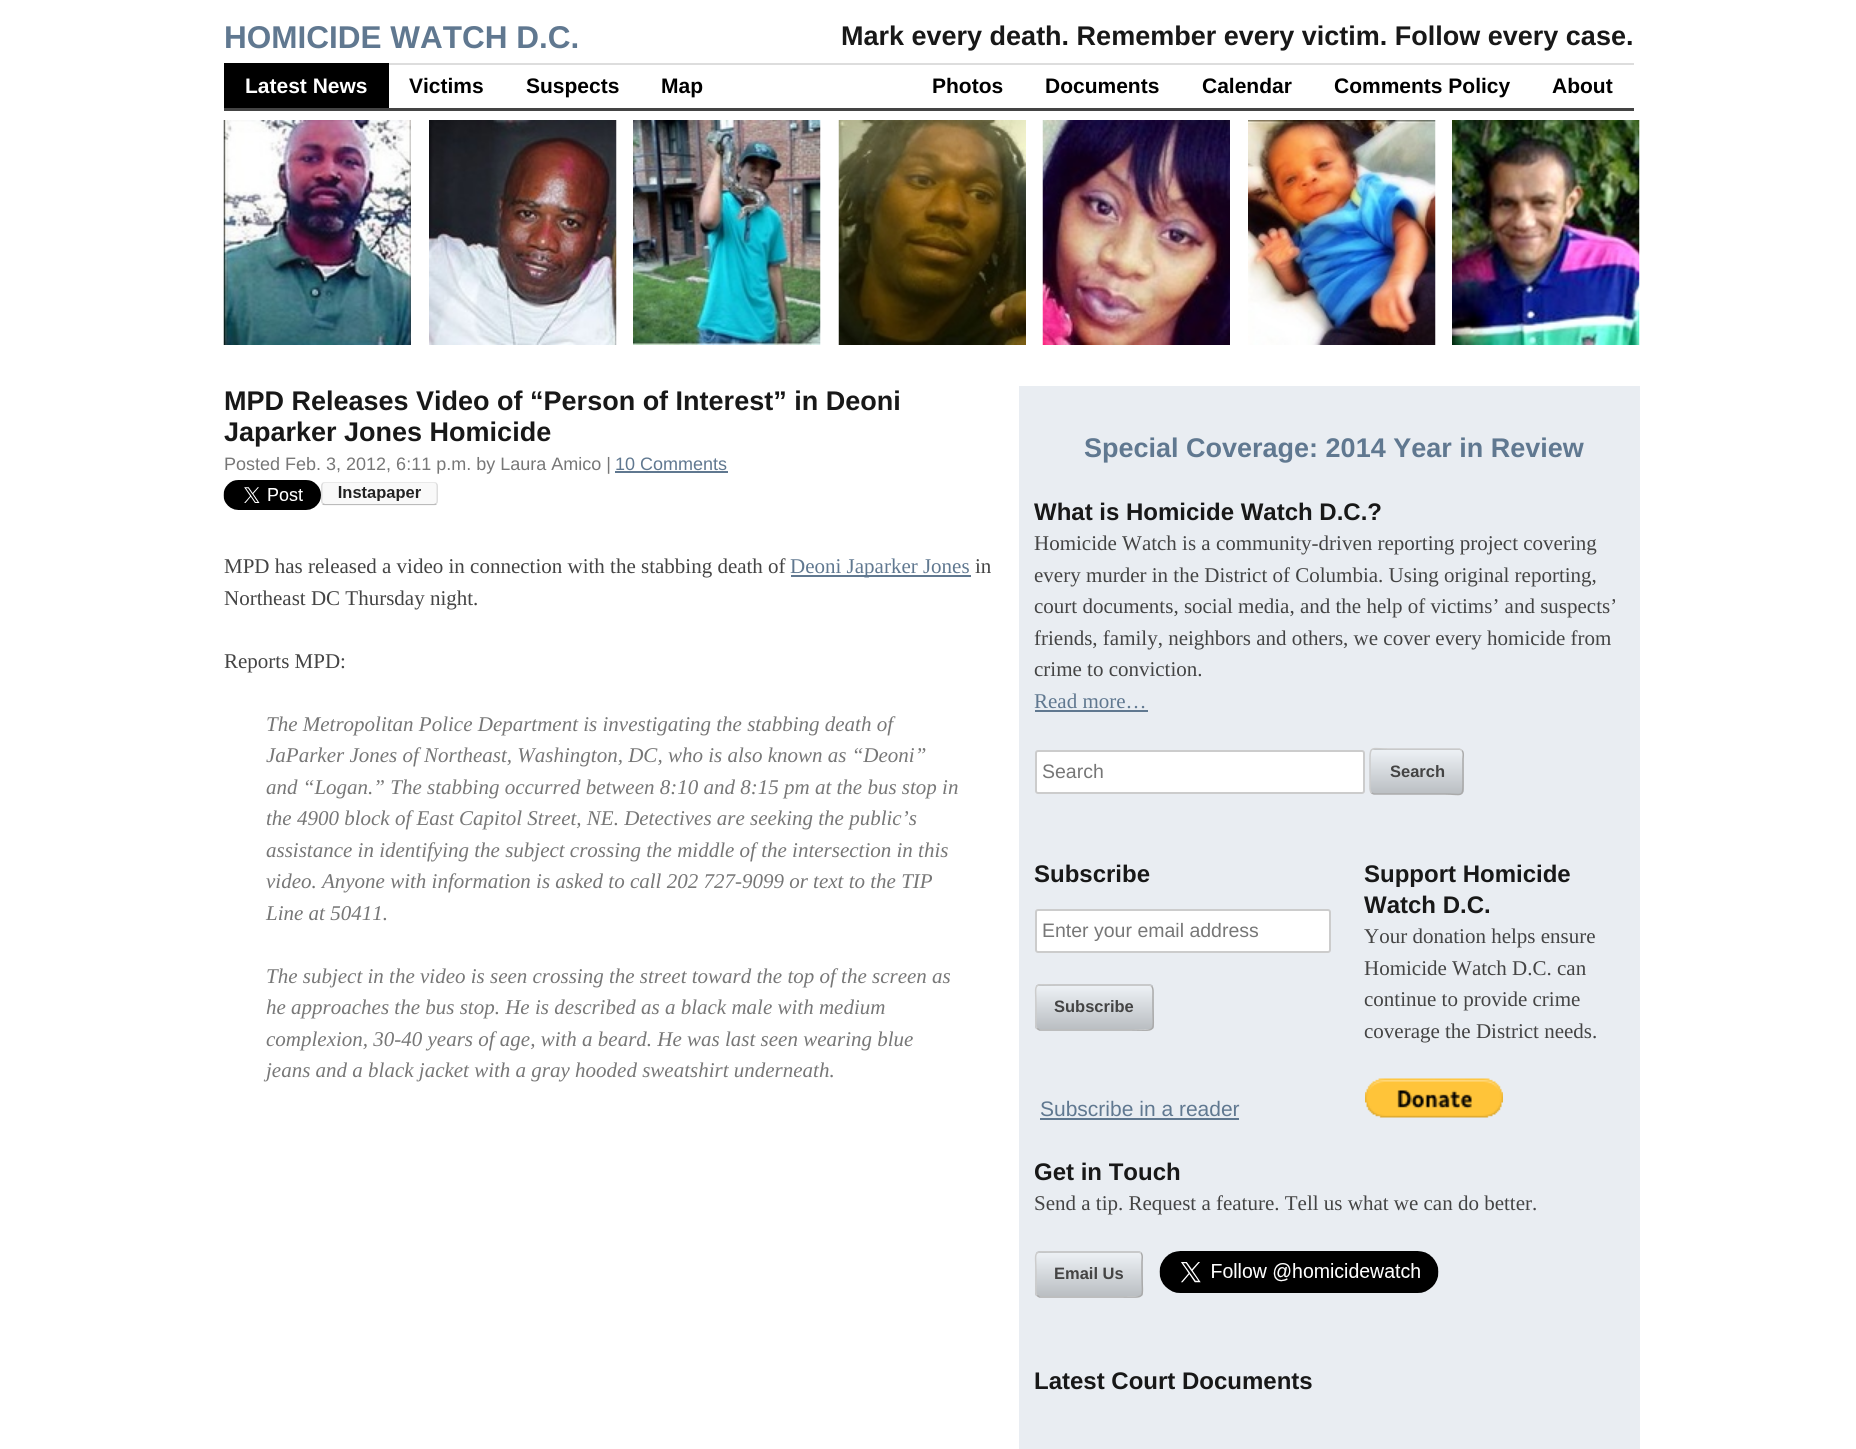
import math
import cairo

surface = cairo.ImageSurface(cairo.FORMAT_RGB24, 1856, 1449)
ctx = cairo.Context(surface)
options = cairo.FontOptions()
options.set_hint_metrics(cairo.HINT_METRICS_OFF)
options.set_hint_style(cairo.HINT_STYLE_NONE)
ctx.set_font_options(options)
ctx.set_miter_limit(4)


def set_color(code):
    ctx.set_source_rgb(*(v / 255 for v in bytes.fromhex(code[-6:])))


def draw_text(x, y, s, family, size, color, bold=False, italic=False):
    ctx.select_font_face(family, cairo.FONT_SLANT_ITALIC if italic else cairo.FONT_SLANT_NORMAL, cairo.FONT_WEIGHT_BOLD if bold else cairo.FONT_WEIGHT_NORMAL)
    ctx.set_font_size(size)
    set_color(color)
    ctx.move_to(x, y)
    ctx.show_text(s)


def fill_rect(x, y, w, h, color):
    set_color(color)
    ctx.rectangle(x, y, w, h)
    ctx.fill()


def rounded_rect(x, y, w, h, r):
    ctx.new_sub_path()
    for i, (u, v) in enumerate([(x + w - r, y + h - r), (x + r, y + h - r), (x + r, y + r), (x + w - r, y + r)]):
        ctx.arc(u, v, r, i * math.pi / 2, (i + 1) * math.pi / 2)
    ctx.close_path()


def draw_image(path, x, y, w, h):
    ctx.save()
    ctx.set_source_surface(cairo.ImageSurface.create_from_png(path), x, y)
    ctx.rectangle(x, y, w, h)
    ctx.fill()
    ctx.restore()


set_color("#ffffff")
ctx.paint()
draw_text(224, 48, "HOMICIDE WATCH D.C.", "Liberation Sans", 31.5, "#607890", bold=True)
draw_text(841, 45, "Mark every death. Remember every victim. Follow every case.", "Liberation Sans", 27, "#181818", bold=True)
fill_rect(389, 63, 1245, 2, "#dddddd")
fill_rect(224, 108, 1410, 3, "#444444")
fill_rect(224, 63, 165, 45, "#000000")
draw_text(245, 93, "Latest News", "Liberation Sans", 21, "#ffffff", bold=True)
draw_text(409, 93, "Victims", "Liberation Sans", 21, "#000000", bold=True)
draw_text(526, 93, "Suspects", "Liberation Sans", 21, "#000000", bold=True)
draw_text(661, 93, "Map", "Liberation Sans", 21, "#000000", bold=True)
draw_text(932, 93, "Photos", "Liberation Sans", 21, "#000000", bold=True)
draw_text(1045, 93, "Documents", "Liberation Sans", 21, "#000000", bold=True)
draw_text(1202, 93, "Calendar", "Liberation Sans", 21, "#000000", bold=True)
draw_text(1334, 93, "Comments Policy", "Liberation Sans", 21, "#000000", bold=True)
draw_text(1552, 93, "About", "Liberation Sans", 21, "#000000", bold=True)
draw_image("assets/img1.png", 223, 120, 188, 225)
draw_image("assets/img2.png", 429, 120, 188, 225)
draw_image("assets/img3.png", 633, 120, 188, 225)
draw_image("assets/img4.png", 838, 120, 188, 225)
draw_image("assets/img5.png", 1042, 120, 188, 225)
draw_image("assets/img6.png", 1248, 120, 188, 225)
draw_image("assets/img7.png", 1452, 120, 188, 225)
draw_text(224, 410, "MPD Releases Video of “Person of Interest” in Deoni", "Liberation Sans", 27, "#181818", bold=True)
draw_text(224, 441, "Japarker Jones Homicide", "Liberation Sans", 27, "#181818", bold=True)
draw_text(224, 470, "Posted Feb. 3, 2012, 6:11 p.m. by Laura Amico |", "Liberation Sans", 18, "#777777")
draw_text(615, 470, "10 Comments", "Liberation Sans", 18, "#607890")
fill_rect(615, 471, 113, 2, "#607890")
draw_image("assets/img8.png", 223, 480, 98, 30)
draw_image("assets/img9.png", 321, 482, 117, 24)
draw_text(224, 573, "MPD has released a video in connection with the stabbing death of", "Liberation Serif", 21, "#444444")
fill_rect(791, 575, 180, 2, "#607890")
draw_text(790, 573, "Deoni Japarker Jones", "Liberation Serif", 21, "#607890")
draw_text(975, 573, "in", "Liberation Serif", 21, "#444444")
draw_text(224, 605, "Northeast DC Thursday night.", "Liberation Serif", 21, "#444444")
draw_text(224, 668, "Reports MPD:", "Liberation Serif", 21, "#444444")
draw_text(266, 731, "The Metropolitan Police Department is investigating the stabbing death of", "Liberation Serif", 21, "#777777", italic=True)
draw_text(266, 762, "JaParker Jones of Northeast, Washington, DC, who is also known as “Deoni”", "Liberation Serif", 21, "#777777", italic=True)
draw_text(266, 794, "and “Logan.” The stabbing occurred between 8:10 and 8:15 pm at the bus stop in", "Liberation Serif", 21, "#777777", italic=True)
draw_text(266, 825, "the 4900 block of East Capitol Street, NE. Detectives are seeking the public’s", "Liberation Serif", 21, "#777777", italic=True)
draw_text(266, 857, "assistance in identifying the subject crossing the middle of the intersection in this", "Liberation Serif", 21, "#777777", italic=True)
draw_text(266, 888, "video. Anyone with information is asked to call 202 727-9099 or text to the TIP", "Liberation Serif", 21, "#777777", italic=True)
draw_text(266, 920, "Line at 50411.", "Liberation Serif", 21, "#777777", italic=True)
draw_text(266, 983, "The subject in the video is seen crossing the street toward the top of the screen as", "Liberation Serif", 21, "#777777", italic=True)
draw_text(266, 1014, "he approaches the bus stop. He is described as a black male with medium", "Liberation Serif", 21, "#777777", italic=True)
draw_text(266, 1046, "complexion, 30-40 years of age, with a beard. He was last seen wearing blue", "Liberation Serif", 21, "#777777", italic=True)
draw_text(266, 1077, "jeans and a black jacket with a gray hooded sweatshirt underneath.", "Liberation Serif", 21, "#777777", italic=True)
fill_rect(1019, 386, 621, 1063, "#e9edf2")
draw_text(1084, 457, "Special Coverage: 2014 Year in Review", "Liberation Sans", 27, "#607890", bold=True)
draw_text(1034, 520, "What is Homicide Watch D.C.?", "Liberation Sans", 24, "#181818", bold=True)
draw_text(1034, 550, "Homicide Watch is a community-driven reporting project covering", "Liberation Serif", 21, "#444444")
draw_text(1034, 582, "every murder in the District of Columbia. Using original reporting,", "Liberation Serif", 21, "#444444")
draw_text(1034, 613, "court documents, social media, and the help of victims’ and suspects’", "Liberation Serif", 21, "#444444")
draw_text(1034, 645, "friends, family, neighbors and others, we cover every homicide from", "Liberation Serif", 21, "#444444")
draw_text(1034, 676, "crime to conviction.", "Liberation Serif", 21, "#444444")
draw_text(1034, 708, "Read more…", "Liberation Serif", 21, "#607890")
fill_rect(1035, 710, 113, 2, "#607890")
set_color("#ffffff")
rounded_rect(1036, 751, 328, 42, 2)
ctx.fill_preserve()
set_color("#cccccc")
ctx.stroke()
draw_text(1042, 778, "Search", "Liberation Sans", 19.5, "#777777")
ctx.save()
rounded_rect(1370, 749, 94, 46, 5)
ctx.clip()
gradient = cairo.LinearGradient(1417, 707, 1417, 750)
gradient.add_color_stop_rgba(0, 0.929, 0.945, 0.961, 1)
gradient.add_color_stop_rgba(1, 0.729, 0.745, 0.761, 1)
ctx.set_source(gradient)
ctx.rectangle(1370, 749, 94, 1)
ctx.fill()
gradient = cairo.LinearGradient(1417, 750, 1417, 794)
gradient.add_color_stop_rgba(0, 0.929, 0.945, 0.961, 1)
gradient.add_color_stop_rgba(1, 0.729, 0.745, 0.761, 1)
ctx.set_source(gradient)
ctx.rectangle(1370, 750, 94, 44)
ctx.fill()
ctx.restore()
ctx.new_path()
ctx.move_to(1462, 750.5)
ctx.curve_to(1464, 752.5, 1463, 757.5, 1463, 759)
ctx.line_to(1463, 784)
ctx.curve_to(1463, 798, 1461.5, 794, 1445, 794)
ctx.line_to(1374, 794)
ctx.line_to(1371.5, 793)
set_color("#aaaaaa")
ctx.set_line_width(1.5)
ctx.stroke()
ctx.new_path()
ctx.move_to(1371.5, 793)
ctx.curve_to(1369.5, 791, 1370, 786, 1370, 784)
ctx.line_to(1370, 759)
ctx.curve_to(1370, 745.5, 1372, 749, 1388, 749)
ctx.line_to(1459.5, 749)
ctx.line_to(1462, 750.5)
set_color("#cccccc")
ctx.stroke()
draw_text(1390, 777, "Search", "Liberation Sans", 16.5, "#444444", bold=True)
draw_text(1034, 882, "Subscribe", "Liberation Sans", 24, "#181818", bold=True)
set_color("#ffffff")
rounded_rect(1036, 910, 294, 42, 2)
ctx.fill_preserve()
set_color("#cccccc")
ctx.set_line_width(2)
ctx.stroke()
draw_text(1042, 937, "Enter your email address", "Liberation Sans", 19.5, "#777777")
ctx.save()
rounded_rect(1035, 984, 119, 47, 5)
ctx.clip()
gradient = cairo.LinearGradient(1094, 942, 1094, 986)
gradient.add_color_stop_rgba(0, 0.929, 0.945, 0.961, 1)
gradient.add_color_stop_rgba(1, 0.729, 0.745, 0.761, 1)
ctx.set_source(gradient)
ctx.rectangle(1035, 984, 119, 2)
ctx.fill()
gradient = cairo.LinearGradient(1094, 986, 1094, 1029)
gradient.add_color_stop_rgba(0, 0.929, 0.945, 0.961, 1)
gradient.add_color_stop_rgba(1, 0.729, 0.745, 0.761, 1)
ctx.set_source(gradient)
ctx.rectangle(1035, 986, 119, 43)
ctx.fill()
gradient = cairo.LinearGradient(1094, 1029, 1094, 1073)
gradient.add_color_stop_rgba(0, 0.929, 0.945, 0.961, 1)
gradient.add_color_stop_rgba(1, 0.729, 0.745, 0.761, 1)
ctx.set_source(gradient)
ctx.rectangle(1035, 1029, 119, 2)
ctx.fill()
ctx.restore()
ctx.new_path()
ctx.move_to(1151.5, 986)
ctx.curve_to(1153.5, 988, 1153, 993, 1153, 995)
ctx.line_to(1153, 1007)
ctx.curve_to(1153, 1034, 1157.5, 1030, 1131, 1030)
ctx.line_to(1039.5, 1030)
ctx.line_to(1037, 1028.5)
set_color("#aaaaaa")
ctx.set_line_width(1.5)
ctx.stroke()
ctx.new_path()
ctx.move_to(1037, 1028.5)
ctx.curve_to(1035, 1026.5, 1036, 1021.5, 1036, 1020)
ctx.line_to(1036, 1007)
ctx.curve_to(1036, 980.5, 1031, 985, 1058, 985)
ctx.line_to(1149, 985)
ctx.line_to(1151.5, 986)
set_color("#cccccc")
ctx.stroke()
draw_text(1054, 1012, "Subscribe", "Liberation Sans", 16.5, "#444444", bold=True)
draw_text(1040, 1116, "Subscribe in a reader", "Liberation Sans", 21, "#607890")
fill_rect(1040, 1118, 199, 2, "#607890")
draw_text(1364, 882, "Support Homicide", "Liberation Sans", 24, "#181818", bold=True)
draw_text(1364, 913, "Watch D.C.", "Liberation Sans", 24, "#181818", bold=True)
draw_text(1364, 943, "Your donation helps ensure", "Liberation Serif", 21, "#444444")
draw_text(1364, 975, "Homicide Watch D.C. can", "Liberation Serif", 21, "#444444")
draw_text(1364, 1006, "continue to provide crime", "Liberation Serif", 21, "#444444")
draw_text(1364, 1038, "coverage the District needs.", "Liberation Serif", 21, "#444444")
draw_image("assets/img10.png", 1365, 1078, 138, 40)
draw_text(1034, 1180, "Get in Touch", "Liberation Sans", 24, "#181818", bold=True)
draw_text(1034, 1210, "Send a tip. Request a feature. Tell us what we can do better.", "Liberation Serif", 21, "#444444")
ctx.save()
rounded_rect(1035, 1251, 108, 47, 5)
ctx.clip()
gradient = cairo.LinearGradient(1089, 1209, 1089, 1253)
gradient.add_color_stop_rgba(0, 0.929, 0.945, 0.961, 1)
gradient.add_color_stop_rgba(1, 0.729, 0.745, 0.761, 1)
ctx.set_source(gradient)
ctx.rectangle(1035, 1251, 108, 2)
ctx.fill()
gradient = cairo.LinearGradient(1089, 1253, 1089, 1296)
gradient.add_color_stop_rgba(0, 0.929, 0.945, 0.961, 1)
gradient.add_color_stop_rgba(1, 0.729, 0.745, 0.761, 1)
ctx.set_source(gradient)
ctx.rectangle(1035, 1253, 108, 43)
ctx.fill()
gradient = cairo.LinearGradient(1089, 1296, 1089, 1340)
gradient.add_color_stop_rgba(0, 0.929, 0.945, 0.961, 1)
gradient.add_color_stop_rgba(1, 0.729, 0.745, 0.761, 1)
ctx.set_source(gradient)
ctx.rectangle(1035, 1296, 108, 2)
ctx.fill()
ctx.restore()
ctx.new_path()
ctx.move_to(1141, 1253)
ctx.curve_to(1143, 1255, 1142, 1260, 1142, 1262)
ctx.line_to(1142, 1274)
ctx.curve_to(1142, 1300, 1147, 1297, 1122, 1297)
ctx.line_to(1039.5, 1297)
ctx.line_to(1037, 1295.5)
set_color("#aaaaaa")
ctx.stroke()
ctx.new_path()
ctx.move_to(1037, 1295.5)
ctx.curve_to(1035, 1293.5, 1036, 1288.5, 1036, 1287)
ctx.line_to(1036, 1274)
ctx.curve_to(1036, 1248.5, 1031, 1252, 1056, 1252)
ctx.line_to(1138.5, 1252)
ctx.line_to(1141, 1253)
set_color("#cccccc")
ctx.stroke()
draw_text(1054, 1279, "Email Us", "Liberation Sans", 16.5, "#444444", bold=True)
draw_image("assets/img11.png", 1159, 1251, 280, 42)
draw_text(1034, 1389, "Latest Court Documents", "Liberation Sans", 24, "#181818", bold=True)
surface.write_to_png("output.png")
